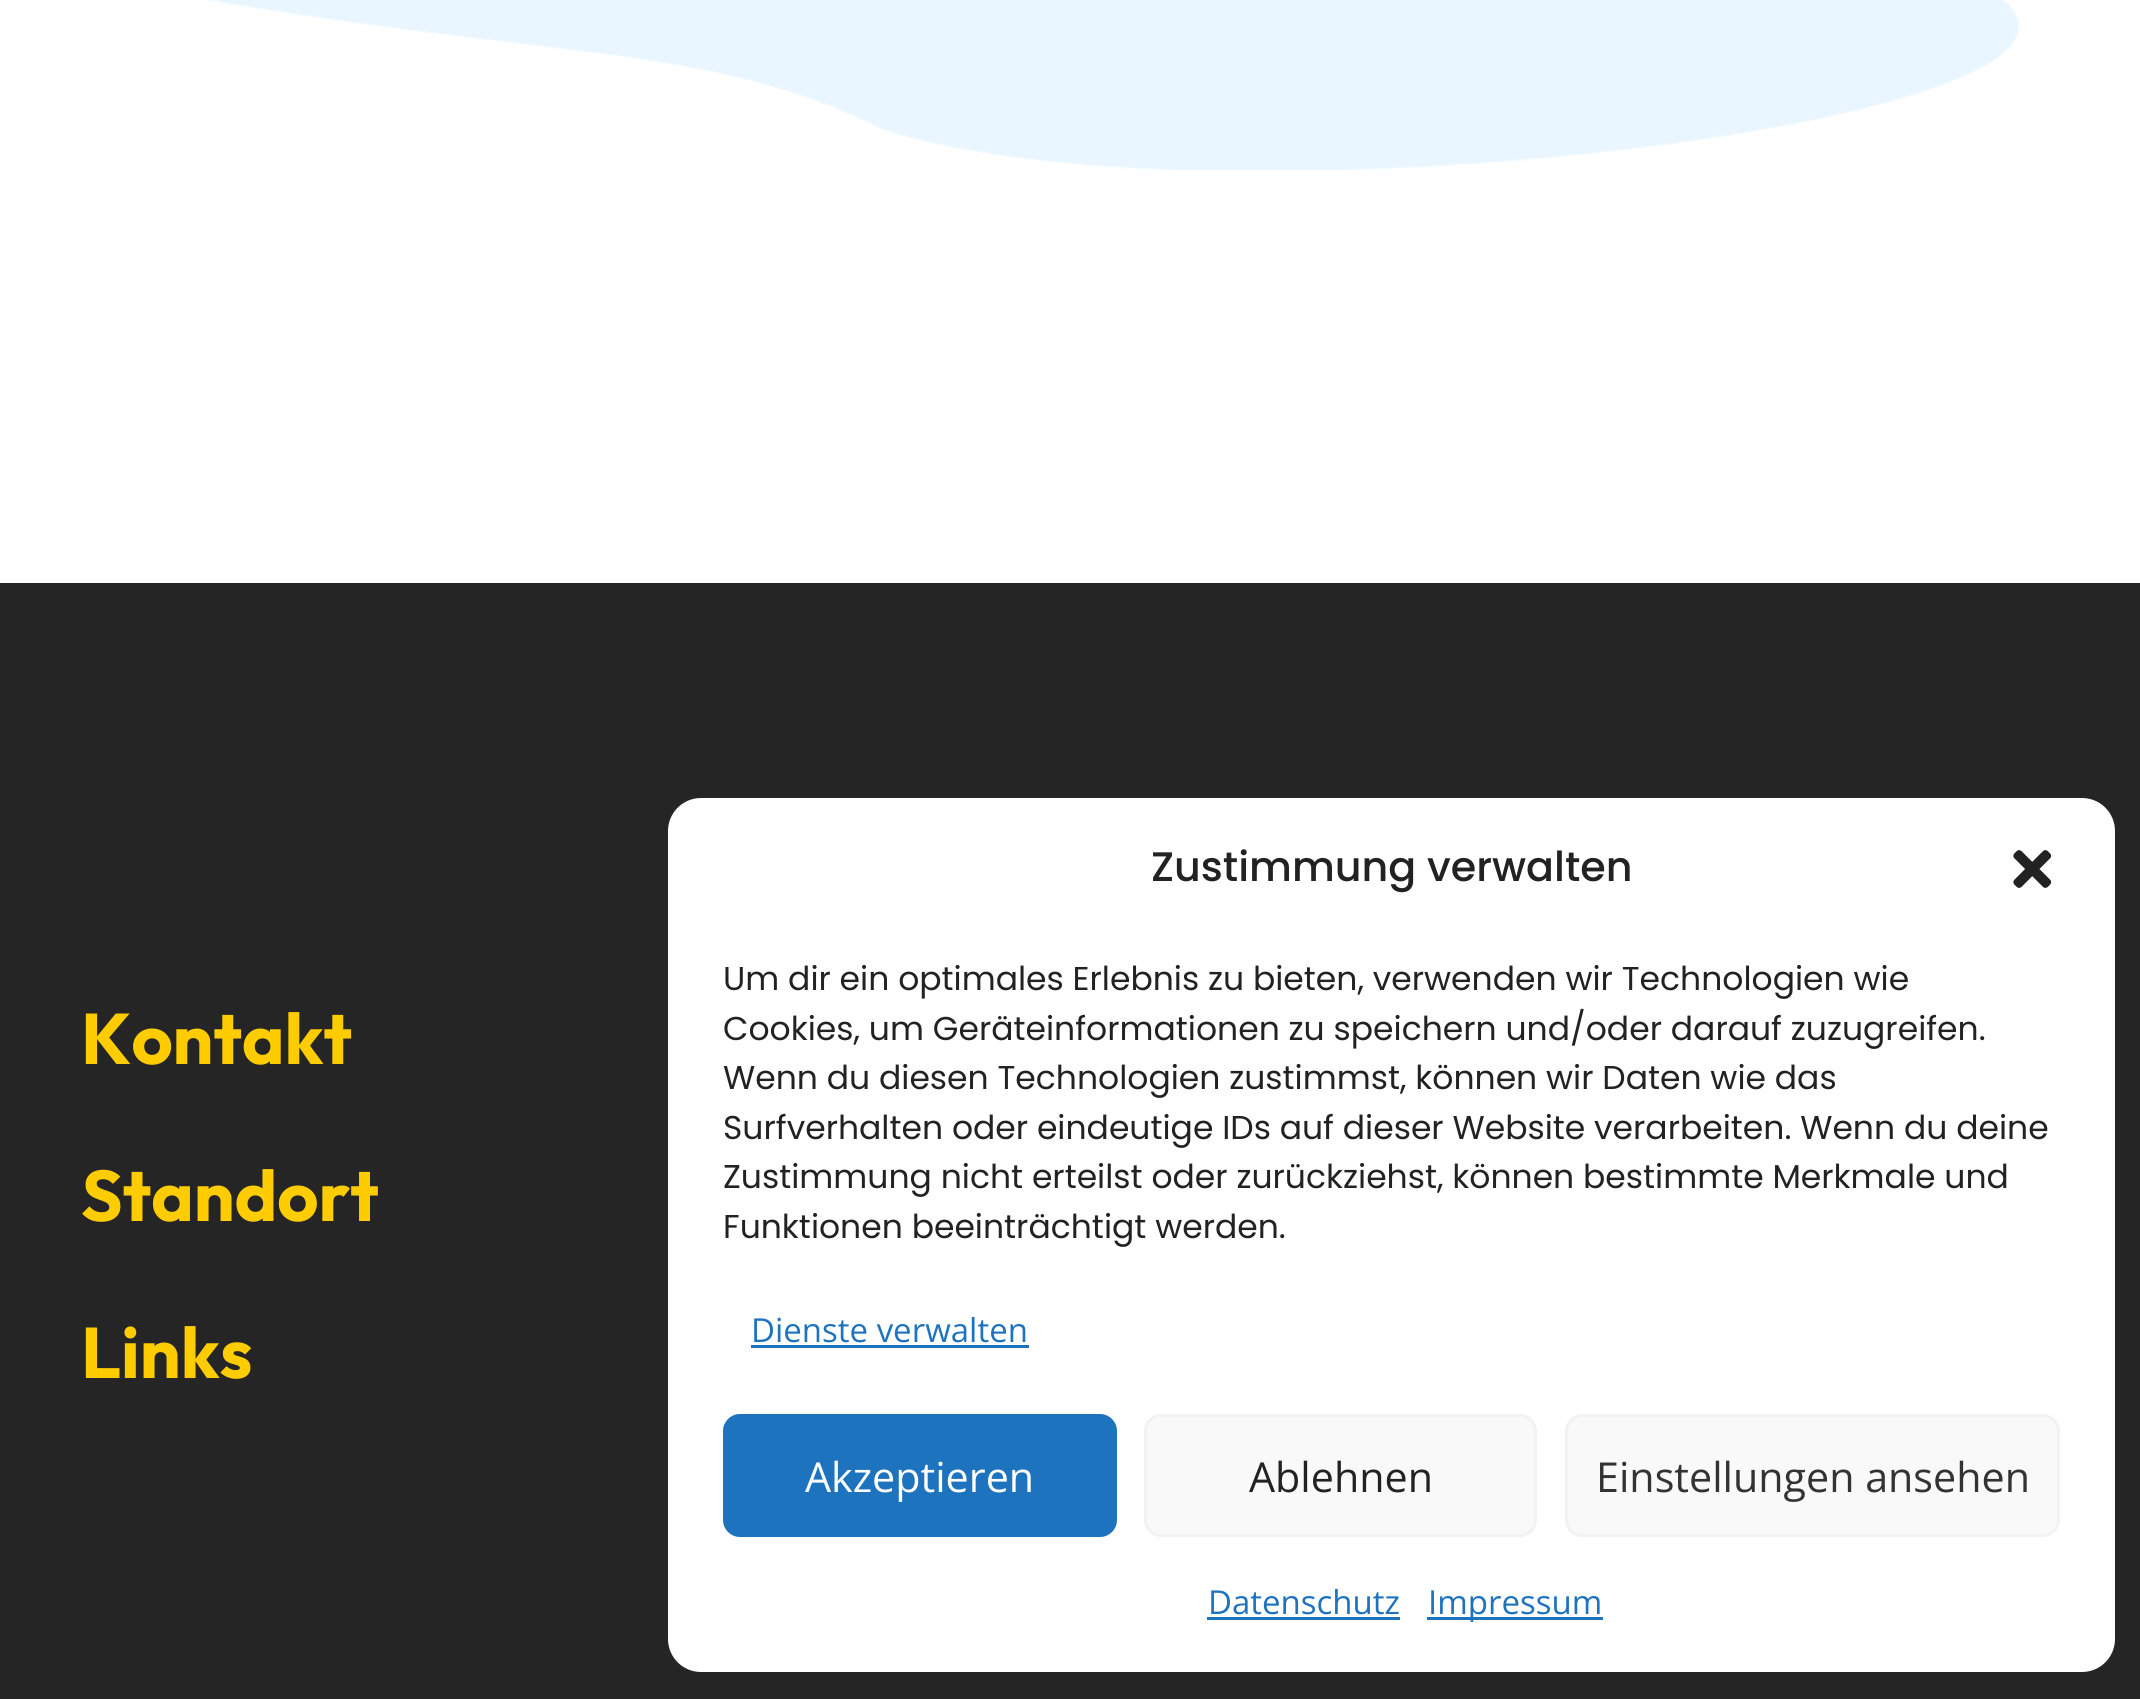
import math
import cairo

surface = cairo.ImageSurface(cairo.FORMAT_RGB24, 2140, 1699)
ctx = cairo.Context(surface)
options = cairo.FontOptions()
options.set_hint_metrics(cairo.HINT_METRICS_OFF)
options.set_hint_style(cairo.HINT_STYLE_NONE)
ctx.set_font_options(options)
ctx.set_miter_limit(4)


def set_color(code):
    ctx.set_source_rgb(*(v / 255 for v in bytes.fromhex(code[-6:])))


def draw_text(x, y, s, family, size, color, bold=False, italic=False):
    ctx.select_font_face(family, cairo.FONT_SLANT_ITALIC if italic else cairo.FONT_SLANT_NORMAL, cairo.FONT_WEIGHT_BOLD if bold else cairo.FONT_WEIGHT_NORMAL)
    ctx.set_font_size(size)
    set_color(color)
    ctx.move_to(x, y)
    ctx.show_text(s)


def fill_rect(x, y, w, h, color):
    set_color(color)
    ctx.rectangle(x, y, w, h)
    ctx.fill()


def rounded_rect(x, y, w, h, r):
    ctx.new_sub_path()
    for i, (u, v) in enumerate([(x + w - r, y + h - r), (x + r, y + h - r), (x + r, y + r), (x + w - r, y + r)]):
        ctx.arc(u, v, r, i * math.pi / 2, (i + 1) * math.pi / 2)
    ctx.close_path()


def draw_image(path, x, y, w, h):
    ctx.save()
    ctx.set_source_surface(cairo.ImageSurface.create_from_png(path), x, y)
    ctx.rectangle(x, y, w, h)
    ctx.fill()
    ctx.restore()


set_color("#ffffff")
ctx.paint()
draw_image("assets/img1.png", 207, 0, 1812, 170)
fill_rect(0, 583, 2140, 1116, "#252525")
draw_text(81, 1064, "Kontakt", "Outfit", 71.5, "#ffcc00", bold=True)
draw_text(81, 1221, "Standort", "Outfit", 71.5, "#ffcc00", bold=True)
draw_text(81, 1378, "Links", "Outfit", 71.5, "#ffcc00", bold=True)
set_color("#ffffff")
rounded_rect(668, 798, 1447, 874, 33)
ctx.fill()
draw_text(1151, 881, "Zustimmung verwalten", "Poppins Medium", 41.25, "#222222")
draw_image("assets/img2.png", 2013, 850, 39, 38)
draw_text(723, 990, "Um dir ein optimales Erlebnis zu bieten, verwenden wir Technologien wie", "Poppins", 33, "#222222")
draw_text(723, 1040, "Cookies, um Geräteinformationen zu speichern und/oder darauf zuzugreifen.", "Poppins", 33, "#222222")
draw_text(723, 1089, "Wenn du diesen Technologien zustimmst, können wir Daten wie das", "Poppins", 33, "#222222")
draw_text(723, 1139, "Surfverhalten oder eindeutige IDs auf dieser Website verarbeiten. Wenn du deine", "Poppins", 33, "#222222")
draw_text(723, 1188, "Zustimmung nicht erteilst oder zurückziehst, können bestimmte Merkmale und", "Poppins", 33, "#222222")
draw_text(723, 1238, "Funktionen beeinträchtigt werden.", "Poppins", 33, "#222222")
draw_text(751, 1342, "Dienste verwalten", "Open Sans", 33, "#1e73be")
fill_rect(751, 1345, 278, 3, "#1e73be")
rounded_rect(724.5, 1415.5, 391, 120, 15.5)
ctx.fill_preserve()
ctx.set_line_width(3)
ctx.stroke()
draw_text(805, 1492, "Akzeptieren", "Open Sans", 41.25, "#ffffff")
set_color("#f9f9f9")
rounded_rect(1145.5, 1415.5, 390, 120, 15.5)
ctx.fill_preserve()
set_color("#f2f2f2")
ctx.stroke()
draw_text(1249, 1492, "Ablehnen", "Open Sans", 41.25, "#222222")
set_color("#f9f9f9")
rounded_rect(1566.5, 1415.5, 492, 120, 15.5)
ctx.fill_preserve()
set_color("#f2f2f2")
ctx.stroke()
draw_text(1596, 1492, "Einstellungen ansehen", "Open Sans", 41.25, "#333333")
draw_text(1208, 1614, "Datenschutz", "Open Sans", 33, "#1e73be")
fill_rect(1207, 1617, 193, 3, "#1e73be")
fill_rect(1427, 1617, 176, 3, "#1e73be")
draw_text(1428, 1614, "Impressum", "Open Sans", 33, "#1e73be")
surface.write_to_png("output.png")
